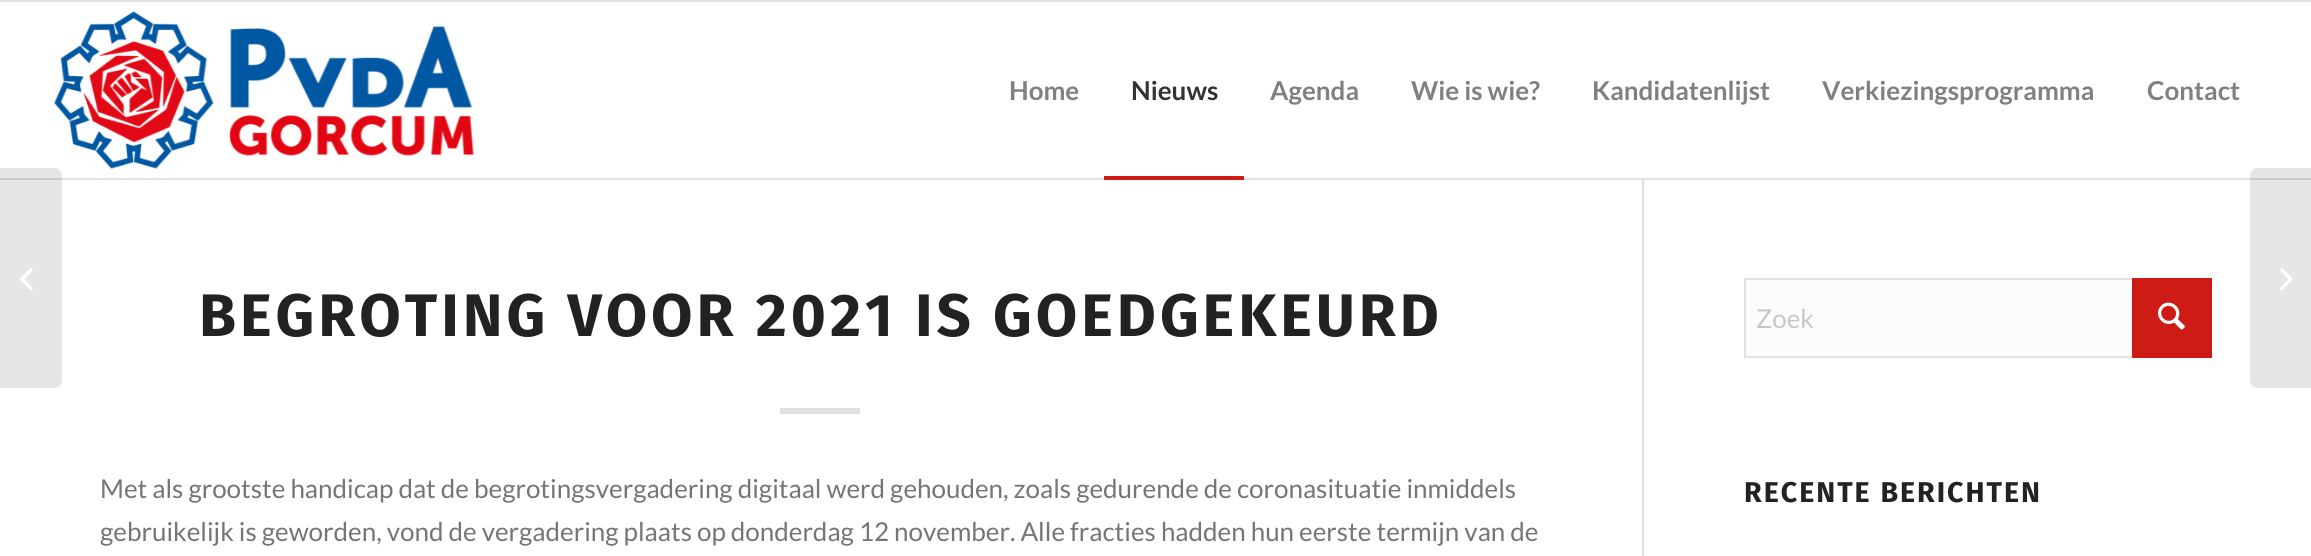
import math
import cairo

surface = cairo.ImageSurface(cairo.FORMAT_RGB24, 2311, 556)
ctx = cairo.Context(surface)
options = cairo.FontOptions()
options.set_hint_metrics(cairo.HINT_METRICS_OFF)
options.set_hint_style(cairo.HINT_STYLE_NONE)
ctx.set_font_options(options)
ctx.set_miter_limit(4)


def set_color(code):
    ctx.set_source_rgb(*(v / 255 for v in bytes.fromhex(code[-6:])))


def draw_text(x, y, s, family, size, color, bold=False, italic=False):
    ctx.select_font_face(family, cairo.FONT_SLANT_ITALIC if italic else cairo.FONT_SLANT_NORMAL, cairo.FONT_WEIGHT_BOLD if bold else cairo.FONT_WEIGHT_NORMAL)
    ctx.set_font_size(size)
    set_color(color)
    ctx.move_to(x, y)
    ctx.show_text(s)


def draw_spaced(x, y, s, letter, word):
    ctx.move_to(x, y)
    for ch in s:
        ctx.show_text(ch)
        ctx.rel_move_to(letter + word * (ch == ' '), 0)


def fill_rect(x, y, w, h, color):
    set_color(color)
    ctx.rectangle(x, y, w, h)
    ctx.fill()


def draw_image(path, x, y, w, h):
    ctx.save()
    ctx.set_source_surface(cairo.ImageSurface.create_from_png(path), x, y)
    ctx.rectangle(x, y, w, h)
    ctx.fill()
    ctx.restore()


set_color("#ffffff")
ctx.paint()
fill_rect(0, 0, 2311, 2, "#e1e1e1")
fill_rect(1642, 178, 2, 378, "#e1e1e1")
fill_rect(0, 178, 2311, 2, "#e1e1e1")
draw_image("assets/img1.png", 54, 11, 420, 158)
draw_text(1009, 100, "Home", "Lato", 26, "#808080", bold=True)
draw_text(1131, 100, "Nieuws", "Lato", 26, "#333333", bold=True)
fill_rect(1104, 176, 140, 4, "#cf1b15")
draw_text(1270, 100, "Agenda", "Lato", 26, "#808080", bold=True)
draw_text(1411, 100, "Wie is wie?", "Lato", 26, "#808080", bold=True)
draw_text(1592, 100, "Kandidatenlijst", "Lato", 26, "#808080", bold=True)
draw_text(1822, 100, "Verkiezingsprogramma", "Lato", 26, "#808080", bold=True)
draw_text(2147, 100, "Contact", "Lato", 26, "#808080", bold=True)
ctx.set_source_rgba(0, 0, 0, 0.1)
ctx.new_path()
ctx.move_to(0, 168)
ctx.line_to(54, 168)
ctx.curve_to(58.5, 168, 62, 171.5, 62, 176)
ctx.line_to(62, 380)
ctx.curve_to(62, 384.5, 58.5, 388, 54, 388)
ctx.line_to(0, 388)
ctx.close_path()
ctx.fill()
draw_image("assets/img2.png", 20, 268, 13, 22)
ctx.select_font_face("Fira Sans", cairo.FONT_SLANT_NORMAL, cairo.FONT_WEIGHT_BOLD)
ctx.set_font_size(60)
set_color("#222222")
draw_spaced(199, 336, "BEGROTING VOOR 2021 IS GOEDGEKEURD", 4, 0)
fill_rect(780, 408, 80, 6, "#e1e1e1")
draw_text(100, 498, "Met als grootste handicap dat de begrotingsvergadering digitaal werd gehouden, zoals gedurende de coronasituatie inmiddels", "Lato", 26, "#757575")
draw_text(100, 541, "gebruikelijk is geworden, vond de vergadering plaats op donderdag 12 november. Alle fracties hadden hun eerste termijn van de", "Lato", 26, "#757575")
fill_rect(1746, 280, 386, 76, "#fcfcfc")
ctx.rectangle(1745, 279, 466, 78)
set_color("#e1e1e1")
ctx.stroke()
draw_text(1756, 328, "Zoek", "Lato", 26, "#c7c7c7")
fill_rect(2132, 278, 80, 80, "#cf1b15")
draw_image("assets/img3.png", 2158, 302, 27, 28)
ctx.select_font_face("Fira Sans", cairo.FONT_SLANT_NORMAL, cairo.FONT_WEIGHT_BOLD)
ctx.set_font_size(28.6)
set_color("#222222")
draw_spaced(1744, 502, "RECENTE BERICHTEN", 2, 0)
ctx.set_source_rgba(0, 0, 0, 0.1)
ctx.new_path()
ctx.move_to(2258, 168)
ctx.line_to(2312, 168)
ctx.line_to(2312, 388)
ctx.line_to(2258, 388)
ctx.curve_to(2253.5, 388, 2250, 384.5, 2250, 380)
ctx.line_to(2250, 176)
ctx.curve_to(2250, 171.5, 2253.5, 168, 2258, 168)
ctx.close_path()
ctx.fill()
draw_image("assets/img4.png", 2280, 268, 13, 23)
surface.write_to_png("output.png")
